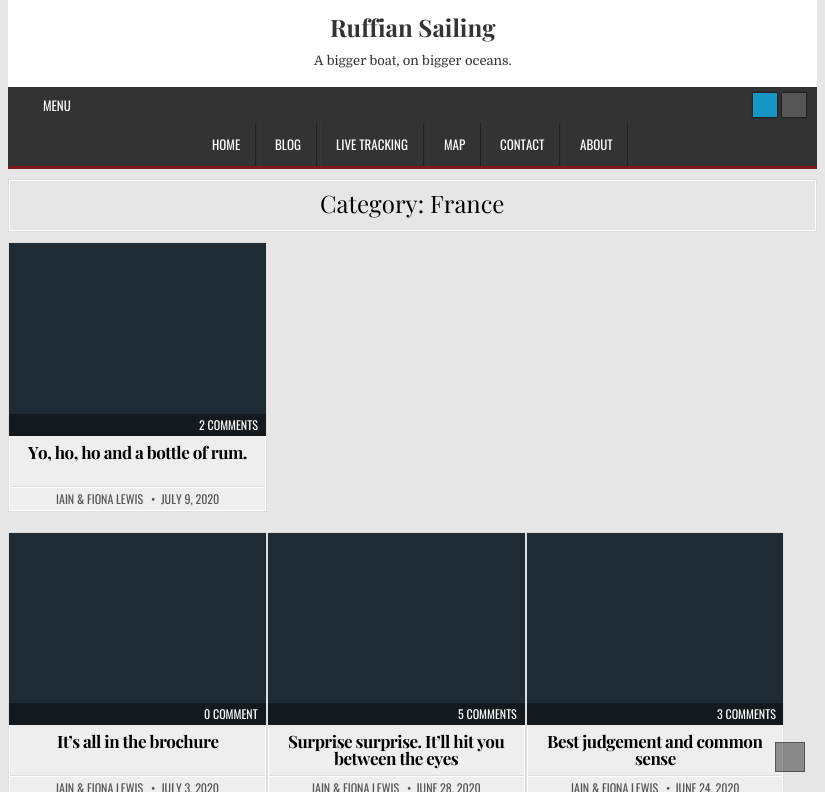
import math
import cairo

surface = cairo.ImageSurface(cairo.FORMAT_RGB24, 825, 792)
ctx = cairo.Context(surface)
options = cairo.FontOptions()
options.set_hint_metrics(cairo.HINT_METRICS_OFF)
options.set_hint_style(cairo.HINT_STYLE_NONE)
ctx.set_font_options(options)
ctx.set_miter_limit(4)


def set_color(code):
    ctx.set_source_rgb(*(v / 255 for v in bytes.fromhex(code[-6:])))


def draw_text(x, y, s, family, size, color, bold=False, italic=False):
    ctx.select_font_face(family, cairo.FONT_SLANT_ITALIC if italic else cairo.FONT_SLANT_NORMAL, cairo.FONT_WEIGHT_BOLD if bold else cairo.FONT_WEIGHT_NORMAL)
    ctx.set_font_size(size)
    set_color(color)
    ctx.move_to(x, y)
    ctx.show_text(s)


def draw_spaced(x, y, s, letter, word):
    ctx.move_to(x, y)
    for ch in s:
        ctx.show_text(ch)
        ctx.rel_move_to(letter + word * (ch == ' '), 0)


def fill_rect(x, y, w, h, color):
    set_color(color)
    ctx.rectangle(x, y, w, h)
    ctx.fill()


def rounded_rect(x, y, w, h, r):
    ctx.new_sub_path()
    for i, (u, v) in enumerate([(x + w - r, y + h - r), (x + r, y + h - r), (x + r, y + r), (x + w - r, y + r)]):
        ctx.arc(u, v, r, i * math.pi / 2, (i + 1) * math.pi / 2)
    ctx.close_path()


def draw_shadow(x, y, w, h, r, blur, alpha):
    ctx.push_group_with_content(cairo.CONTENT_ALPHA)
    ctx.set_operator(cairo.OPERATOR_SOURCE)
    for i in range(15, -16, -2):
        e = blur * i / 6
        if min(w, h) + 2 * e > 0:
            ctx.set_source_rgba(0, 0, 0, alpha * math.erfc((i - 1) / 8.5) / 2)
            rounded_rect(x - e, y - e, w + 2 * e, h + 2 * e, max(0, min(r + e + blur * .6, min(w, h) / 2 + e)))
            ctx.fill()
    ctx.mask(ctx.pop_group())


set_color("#e6e6e6")
ctx.paint()
fill_rect(8, 0, 809, 87, "#ffffff")
draw_text(330, 37, "Ruffian Sailing", "Playfair Display", 24, "#333333", bold=True)
draw_text(314, 65, "A bigger boat, on bigger oceans.", "Domine", 13, "#333333")
fill_rect(8, 87, 809, 79, "#333333")
fill_rect(8, 166, 809, 3, "#7f181b")
draw_text(43, 111, "MENU", "Oswald", 13, "#ffffff")
set_color("#000000")
draw_shadow(753, 93, 24, 24, 0, 1, 1)
fill_rect(753, 93, 24, 24, "#1796c6")
set_color("#000000")
draw_shadow(782, 93, 24, 24, 0, 1, 1)
fill_rect(782, 93, 24, 24, "#555555")
fill_rect(255, 123, 1, 43, "#222222")
draw_text(212, 150, "HOME", "Oswald", 13, "#ffffff")
fill_rect(316, 123, 1, 43, "#222222")
fill_rect(259, 123, 1, 43, "#383838")
draw_text(275, 150, "BLOG", "Oswald", 13, "#ffffff")
fill_rect(423, 123, 1, 43, "#222222")
fill_rect(320, 123, 1, 43, "#383838")
draw_text(336, 150, "LIVE TRACKING", "Oswald", 13, "#ffffff")
fill_rect(480, 123, 1, 43, "#222222")
fill_rect(428, 123, 1, 43, "#383838")
draw_text(444, 150, "MAP", "Oswald", 13, "#ffffff")
fill_rect(559, 123, 1, 43, "#222222")
fill_rect(484, 123, 1, 43, "#383838")
draw_text(500, 150, "CONTACT", "Oswald", 13, "#ffffff")
fill_rect(627, 123, 1, 43, "#222222")
fill_rect(564, 123, 1, 43, "#383838")
draw_text(580, 150, "ABOUT", "Oswald", 13, "#ffffff")
ctx.rectangle(8.5, 179.5, 808, 52)
set_color("#dddddd")
ctx.set_line_width(1)
ctx.stroke()
ctx.rectangle(9.5, 180.5, 806, 50)
set_color("#ffffff")
ctx.stroke()
draw_text(320, 213, "Category: France", "Playfair Display", 24, "#000000")
fill_rect(9, 436, 257, 75, "#ffffff")
ctx.rectangle(8.5, 242.5, 258, 269)
set_color("#dddddd")
ctx.stroke()
fill_rect(9, 243, 257, 171, "#1e2b34")
fill_rect(9, 414, 257, 22, "#121a1f")
draw_text(199, 430, "2 COMMENTS", "Oswald", 12, "#ffffff")
fill_rect(10, 436, 255, 50, "#eeeeee")
ctx.select_font_face("Playfair Display", cairo.FONT_SLANT_NORMAL, cairo.FONT_WEIGHT_BOLD)
ctx.set_font_size(17)
set_color("#000000")
draw_spaced(28, 459, "Yo, ho, ho and a bottle of rum.", -0.5, 0)
fill_rect(10, 488, 255, 22, "#eeeeee")
fill_rect(10, 486, 255, 1, "#dddddd")
draw_text(56, 504, "IAIN & FIONA LEWIS", "Oswald", 12, "#555555")
draw_text(151, 504, "•", "Oswald", 12, "#555555")
draw_text(161, 504, "JULY 9, 2020", "Oswald", 12, "#555555")
fill_rect(9, 725, 257, 67, "#ffffff")
ctx.rectangle(8.5, 532.5, 258, 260)
set_color("#dddddd")
ctx.stroke()
fill_rect(9, 533, 257, 170, "#1e2b34")
fill_rect(9, 703, 257, 22, "#121a1f")
draw_text(204, 719, "0 COMMENT", "Oswald", 12, "#ffffff")
fill_rect(10, 725, 255, 50, "#eeeeee")
ctx.select_font_face("Playfair Display", cairo.FONT_SLANT_NORMAL, cairo.FONT_WEIGHT_BOLD)
ctx.set_font_size(17)
set_color("#000000")
draw_spaced(57, 748, "It’s all in the brochure", -0.5, 0)
fill_rect(10, 777, 255, 15, "#eeeeee")
fill_rect(10, 775, 255, 1, "#dddddd")
draw_text(56, 793, "IAIN & FIONA LEWIS", "Oswald", 12, "#555555")
draw_text(151, 793, "•", "Oswald", 12, "#555555")
draw_text(161, 793, "JULY 3, 2020", "Oswald", 12, "#555555")
fill_rect(268, 725, 257, 67, "#ffffff")
ctx.rectangle(267.5, 532.5, 258, 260)
set_color("#dddddd")
ctx.stroke()
fill_rect(268, 533, 257, 170, "#1e2b34")
fill_rect(268, 703, 257, 22, "#121a1f")
draw_text(458, 719, "5 COMMENTS", "Oswald", 12, "#ffffff")
fill_rect(269, 725, 255, 50, "#eeeeee")
ctx.select_font_face("Playfair Display", cairo.FONT_SLANT_NORMAL, cairo.FONT_WEIGHT_BOLD)
ctx.set_font_size(17)
set_color("#000000")
draw_spaced(288, 748, "Surprise surprise. It’ll hit you", -0.5, 0)
draw_spaced(334, 765, "between the eyes", -0.5, 0)
fill_rect(269, 777, 255, 15, "#eeeeee")
fill_rect(269, 775, 255, 1, "#dddddd")
draw_text(312, 793, "IAIN & FIONA LEWIS", "Oswald", 12, "#555555")
draw_text(407, 793, "•", "Oswald", 12, "#555555")
draw_text(416, 793, "JUNE 28, 2020", "Oswald", 12, "#555555")
fill_rect(527, 725, 256, 67, "#ffffff")
ctx.rectangle(526.5, 532.5, 257, 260)
set_color("#dddddd")
ctx.stroke()
fill_rect(527, 533, 256, 170, "#1e2b34")
fill_rect(527, 703, 256, 22, "#121a1f")
draw_text(717, 719, "3 COMMENTS", "Oswald", 12, "#ffffff")
fill_rect(528, 725, 254, 50, "#eeeeee")
ctx.select_font_face("Playfair Display", cairo.FONT_SLANT_NORMAL, cairo.FONT_WEIGHT_BOLD)
ctx.set_font_size(17)
set_color("#000000")
draw_spaced(547, 748, "Best judgement and common", -0.5, 0)
draw_spaced(635, 765, "sense", -0.5, 0)
fill_rect(528, 777, 254, 15, "#eeeeee")
fill_rect(528, 775, 254, 1, "#dddddd")
draw_text(571, 793, "IAIN & FIONA LEWIS", "Oswald", 12, "#555555")
draw_text(666, 793, "•", "Oswald", 12, "#555555")
draw_text(675, 793, "JUNE 24, 2020", "Oswald", 12, "#555555")
ctx.set_source_rgba(0, 0, 0, 0.4)
ctx.rectangle(775, 742, 30, 30)
ctx.fill()
ctx.rectangle(775.5, 742.5, 29, 29)
ctx.stroke()
surface.write_to_png("output.png")
